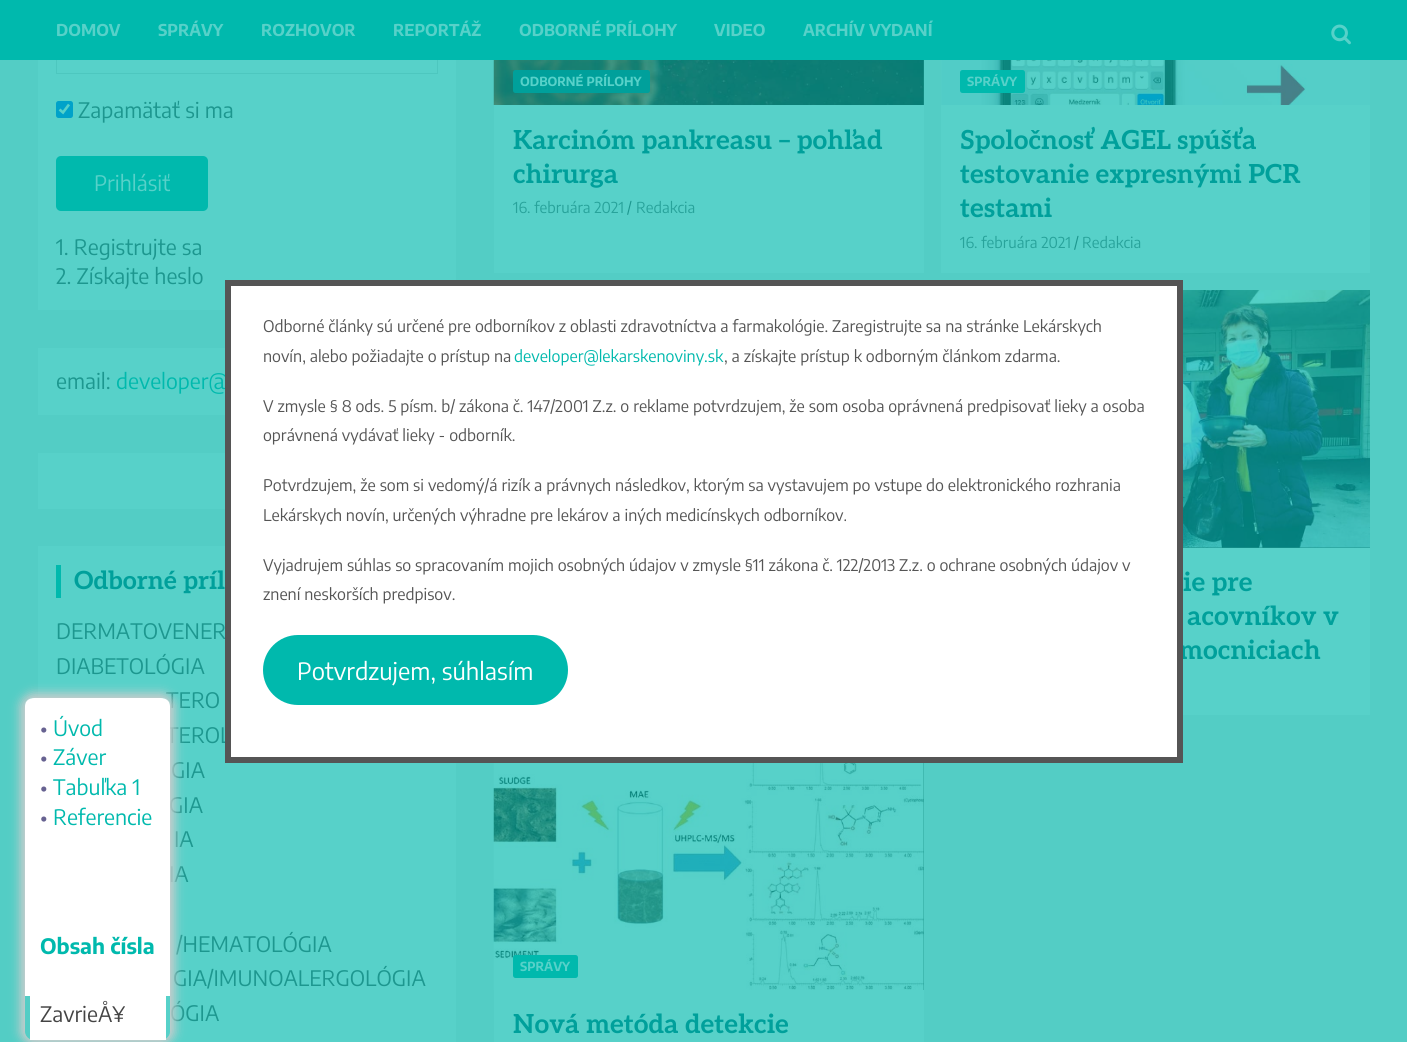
import math
import cairo

surface = cairo.ImageSurface(cairo.FORMAT_RGB24, 1407, 1042)
ctx = cairo.Context(surface)
options = cairo.FontOptions()
options.set_hint_metrics(cairo.HINT_METRICS_OFF)
options.set_hint_style(cairo.HINT_STYLE_NONE)
ctx.set_font_options(options)
ctx.set_miter_limit(4)


def set_color(code):
    ctx.set_source_rgb(*(v / 255 for v in bytes.fromhex(code[-6:])))


def draw_text(x, y, s, family, size, color, bold=False, italic=False):
    ctx.select_font_face(family, cairo.FONT_SLANT_ITALIC if italic else cairo.FONT_SLANT_NORMAL, cairo.FONT_WEIGHT_BOLD if bold else cairo.FONT_WEIGHT_NORMAL)
    ctx.set_font_size(size)
    set_color(color)
    ctx.move_to(x, y)
    ctx.show_text(s)


def fill_rect(x, y, w, h, color):
    set_color(color)
    ctx.rectangle(x, y, w, h)
    ctx.fill()


def rounded_rect(x, y, w, h, r):
    ctx.new_sub_path()
    for i, (u, v) in enumerate([(x + w - r, y + h - r), (x + r, y + h - r), (x + r, y + r), (x + w - r, y + r)]):
        ctx.arc(u, v, r, i * math.pi / 2, (i + 1) * math.pi / 2)
    ctx.close_path()


def draw_shadow(x, y, w, h, r, blur, alpha):
    ctx.push_group_with_content(cairo.CONTENT_ALPHA)
    ctx.set_operator(cairo.OPERATOR_SOURCE)
    for i in range(15, -16, -2):
        e = blur * i / 6
        if min(w, h) + 2 * e > 0:
            ctx.set_source_rgba(0, 0, 0, alpha * math.erfc((i - 1) / 8.5) / 2)
            rounded_rect(x - e, y - e, w + 2 * e, h + 2 * e, max(0, min(r + e + blur * .6, min(w, h) / 2 + e)))
            ctx.fill()
    ctx.mask(ctx.pop_group())


def draw_image(path, x, y, w, h):
    ctx.save()
    ctx.set_source_surface(cairo.ImageSurface.create_from_png(path), x, y)
    ctx.rectangle(x, y, w, h)
    ctx.fill()
    ctx.restore()


set_color("#53cdc5")
ctx.paint()
fill_rect(38, 60, 418, 250, "#57d1c9")
ctx.rectangle(56.5, 16.5, 381, 57)
set_color("#4dc7bf")
ctx.set_line_width(1)
ctx.stroke()
fill_rect(0, 0, 1407, 60, "#00b9ad")
draw_text(56, 36, "DOMOV", "Encode Sans Condensed", 16.25, "#57d1c9", bold=True)
draw_text(158, 36, "SPRÁVY", "Encode Sans Condensed", 16.25, "#57d1c9", bold=True)
draw_text(261, 36, "ROZHOVOR", "Encode Sans Condensed", 16.25, "#57d1c9", bold=True)
draw_text(393, 36, "REPORTÁŽ", "Encode Sans Condensed", 16.25, "#57d1c9", bold=True)
draw_text(519, 36, "ODBORNÉ PRÍLOHY", "Encode Sans Condensed", 16.25, "#57d1c9", bold=True)
draw_text(714, 36, "VIDEO", "Encode Sans Condensed", 16.25, "#57d1c9", bold=True)
draw_text(803, 36, "ARCHÍV VYDANÍ", "Encode Sans Condensed", 16.25, "#57d1c9", bold=True)
draw_image("assets/img1.png", 1331, 24, 20, 21)
set_color("#00a2c9")
rounded_rect(56, 101, 17, 17, 2.5)
ctx.fill()
ctx.new_path()
ctx.move_to(59.5, 109.5)
ctx.line_to(63, 112.5)
ctx.line_to(69, 104.5)
set_color("#57d1c9")
ctx.set_line_width(2.6)
ctx.stroke()
draw_text(78, 118, "Zapamätať si ma", "Encode Sans Condensed", 21.25, "#1d978f")
set_color("#00b9ad")
rounded_rect(56, 156, 152, 55, 5)
ctx.fill()
draw_text(94, 191, "Prihlásiť", "Encode Sans Condensed", 21.25, "#57d1c9")
draw_text(56, 255, "1. Registrujte sa", "Encode Sans Condensed", 21.25, "#1d978f")
draw_text(56, 284, "2. Získajte heslo", "Encode Sans Condensed", 21.25, "#1d978f")
fill_rect(38, 348, 187, 67, "#57d1c9")
draw_text(56, 389, "email:", "Encode Sans Condensed", 21.25, "#1d978f")
draw_text(116, 389, "developer@", "Encode Sans Condensed", 21.25, "#00b9ad")
fill_rect(38, 453, 187, 56, "#57d1c9")
fill_rect(38, 546, 418, 496, "#57d1c9")
fill_rect(56, 565, 5, 33, "#00b9ad")
draw_text(74, 589, "Odborné príl", "Aleo", 25, "#00a09b", bold=True)
draw_text(56, 639, "DERMATOVENER", "Encode Sans Condensed", 21.25, "#1d978f")
draw_text(56, 674, "DIABETOLÓGIA", "Encode Sans Condensed", 21.25, "#1d978f")
draw_text(166, 708, "TERO", "Encode Sans Condensed", 21.25, "#1d978f")
draw_text(166, 743, "TEROL", "Encode Sans Condensed", 21.25, "#1d978f")
draw_text(171, 778, "GIA", "Encode Sans Condensed", 21.25, "#1d978f")
draw_text(169, 813, "GIA", "Encode Sans Condensed", 21.25, "#1d978f")
draw_text(174, 847, "IA", "Encode Sans Condensed", 21.25, "#1d978f")
draw_text(169, 882, "IA", "Encode Sans Condensed", 21.25, "#1d978f")
draw_text(176, 952, "/HEMATOLÓGIA", "Encode Sans Condensed", 21.25, "#1d978f")
draw_text(173, 986, "GIA/IMUNOALERGOLÓGIA", "Encode Sans Condensed", 21.25, "#1d978f")
draw_text(170, 1021, "ÓGIA", "Encode Sans Condensed", 21.25, "#1d978f")
fill_rect(494, 105, 430, 168, "#57d1c9")
fill_rect(923, 60, 1, 45, "#1d978f")
draw_image("assets/img2.png", 493, 60, 431, 45)
set_color("#00a09b")
rounded_rect(513, 70, 137, 23, 2.5)
ctx.fill()
draw_text(520, 86, "ODBORNÉ PRÍLOHY", "Encode Sans Condensed", 12.5, "#57d1c9", bold=True)
draw_text(513, 149, "Karcinóm pankreasu – pohľad", "Aleo", 26.25, "#00a09b", bold=True)
draw_text(513, 183, "chirurga", "Aleo", 26.25, "#00a09b", bold=True)
draw_text(513, 213, "16. februára 2021", "Encode Sans Condensed", 15, "#28a39b")
draw_text(627, 213, "/", "Encode Sans Condensed", 15, "#1d978f")
draw_text(636, 213, "Redakcia", "Encode Sans Condensed", 15, "#28a39b")
fill_rect(941, 60, 429, 213, "#57d1c9")
draw_image("assets/img3.png", 941, 60, 429, 45)
set_color("#00b9ad")
rounded_rect(960, 70, 65, 23, 2.5)
ctx.fill()
draw_text(967, 86, "SPRÁVY", "Encode Sans Condensed", 12.5, "#57d1c9", bold=True)
draw_text(960, 149, "Spoločnosť AGEL spúšťa", "Aleo", 26.25, "#00a09b", bold=True)
draw_text(960, 183, "testovanie expresnými PCR", "Aleo", 26.25, "#00a09b", bold=True)
draw_text(960, 217, "testami", "Aleo", 26.25, "#00a09b", bold=True)
draw_text(960, 248, "16. februára 2021", "Encode Sans Condensed", 15, "#28a39b")
draw_text(1074, 248, "/", "Encode Sans Condensed", 15, "#1d978f")
draw_text(1082, 248, "Redakcia", "Encode Sans Condensed", 15, "#28a39b")
fill_rect(1183, 548, 187, 167, "#57d1c9")
fill_rect(1183, 547, 187, 1, "#1d978f")
draw_image("assets/img4.png", 1183, 290, 187, 258)
draw_text(1183, 591, "ie pre", "Aleo", 26.25, "#00a09b", bold=True)
draw_text(1187, 625, "acovníkov v", "Aleo", 26.25, "#00a09b", bold=True)
draw_text(1179, 659, "mocniciach", "Aleo", 26.25, "#00a09b", bold=True)
fill_rect(494, 990, 430, 52, "#57d1c9")
fill_rect(923, 763, 1, 227, "#1d978f")
draw_image("assets/img5.png", 493, 763, 431, 227)
set_color("#00b9ad")
rounded_rect(513, 955, 65, 23, 2.5)
ctx.fill()
draw_text(520, 971, "SPRÁVY", "Encode Sans Condensed", 12.5, "#57d1c9", bold=True)
draw_text(513, 1033, "Nová metóda detekcie", "Aleo", 26.25, "#00a09b", bold=True)
set_color("#ffffff")
ctx.rectangle(228, 283, 952, 477)
ctx.fill_preserve()
set_color("#555555")
ctx.set_line_width(6)
ctx.stroke()
draw_text(263, 332, "Odborné články sú určené pre odborníkov z oblasti zdravotníctva a farmakológie. Zaregistrujte sa na stránke Lekárskych", "Encode Sans Condensed", 15.95, "#555555")
draw_text(263, 362, "novín, alebo požiadajte o prístup na", "Encode Sans Condensed", 15.95, "#555555")
draw_text(514, 362, "developer@lekarskenoviny.sk", "Encode Sans Condensed", 15.95, "#00b9ad")
draw_text(724, 362, ", a získajte prístup k odborným článkom zdarma.", "Encode Sans Condensed", 15.95, "#555555")
draw_text(263, 412, "V zmysle § 8 ods. 5 písm. b/ zákona č. 147/2001 Z.z. o reklame potvrdzujem, že som osoba oprávnená predpisovať lieky a osoba", "Encode Sans Condensed", 15.95, "#555555")
draw_text(263, 441, "oprávnená vydávať lieky - odborník.", "Encode Sans Condensed", 15.95, "#555555")
draw_text(263, 491, "Potvrdzujem, že som si vedomý/á rizík a právnych následkov, ktorým sa vystavujem po vstupe do elektronického rozhrania", "Encode Sans Condensed", 15.95, "#555555")
draw_text(263, 521, "Lekárskych novín, určených výhradne pre lekárov a iných medicínskych odborníkov.", "Encode Sans Condensed", 15.95, "#555555")
draw_text(263, 571, "Vyjadrujem súhlas so spracovaním mojich osobných údajov v zmysle §11 zákona č. 122/2013 Z.z. o ochrane osobných údajov v", "Encode Sans Condensed", 15.95, "#555555")
draw_text(263, 600, "znení neskorších predpisov.", "Encode Sans Condensed", 15.95, "#555555")
set_color("#00b9ad")
rounded_rect(263, 635, 305, 70, 35)
ctx.fill()
draw_text(297, 680, "Potvrdzujem, súhlasím", "Encode Sans Condensed", 23.75, "#ffffff")
ctx.save()
ctx.set_fill_rule(cairo.FILL_RULE_EVEN_ODD)
ctx.new_path()
ctx.move_to(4, 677)
ctx.line_to(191, 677)
ctx.line_to(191, 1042)
ctx.line_to(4, 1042)
ctx.close_path()
ctx.move_to(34, 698)
ctx.line_to(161, 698)
ctx.curve_to(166, 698, 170, 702, 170, 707)
ctx.line_to(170, 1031)
ctx.curve_to(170, 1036, 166, 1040, 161, 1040)
ctx.line_to(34, 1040)
ctx.curve_to(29, 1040, 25, 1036, 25, 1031)
ctx.line_to(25, 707)
ctx.curve_to(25, 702, 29, 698, 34, 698)
ctx.close_path()
ctx.clip()
set_color("#cccccc")
draw_shadow(20, 693, 155, 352, 14, 5, 1)
ctx.restore()
ctx.new_path()
ctx.move_to(34, 698)
ctx.line_to(161, 698)
ctx.curve_to(166, 698, 170, 701, 170, 706)
ctx.line_to(170, 996)
ctx.line_to(25, 996)
ctx.line_to(25, 706)
ctx.curve_to(25, 701, 29, 698, 34, 698)
ctx.close_path()
ctx.fill()
fill_rect(30, 996, 136, 44, "#ffffff")
draw_text(40, 736, "•", "Encode Sans Condensed", 21.25, "#676291")
draw_text(53, 736, "Úvod", "Encode Sans Condensed", 21.25, "#00b9ad")
draw_text(40, 765, "•", "Encode Sans Condensed", 21.25, "#676291")
draw_text(53, 765, "Záver", "Encode Sans Condensed", 21.25, "#00b9ad")
draw_text(40, 795, "•", "Encode Sans Condensed", 21.25, "#676291")
draw_text(53, 795, "Tabuľka 1", "Encode Sans Condensed", 21.25, "#00b9ad")
draw_text(40, 825, "•", "Encode Sans Condensed", 21.25, "#676291")
draw_text(53, 825, "Referencie", "Encode Sans Condensed", 21.25, "#00b9ad")
draw_text(40, 954, "Obsah čísla", "Encode Sans Condensed", 21.25, "#00b9ad", bold=True)
draw_text(40, 1022, "ZavrieÅ¥", "Encode Sans Condensed", 21.25, "#444444")
surface.write_to_png("output.png")
